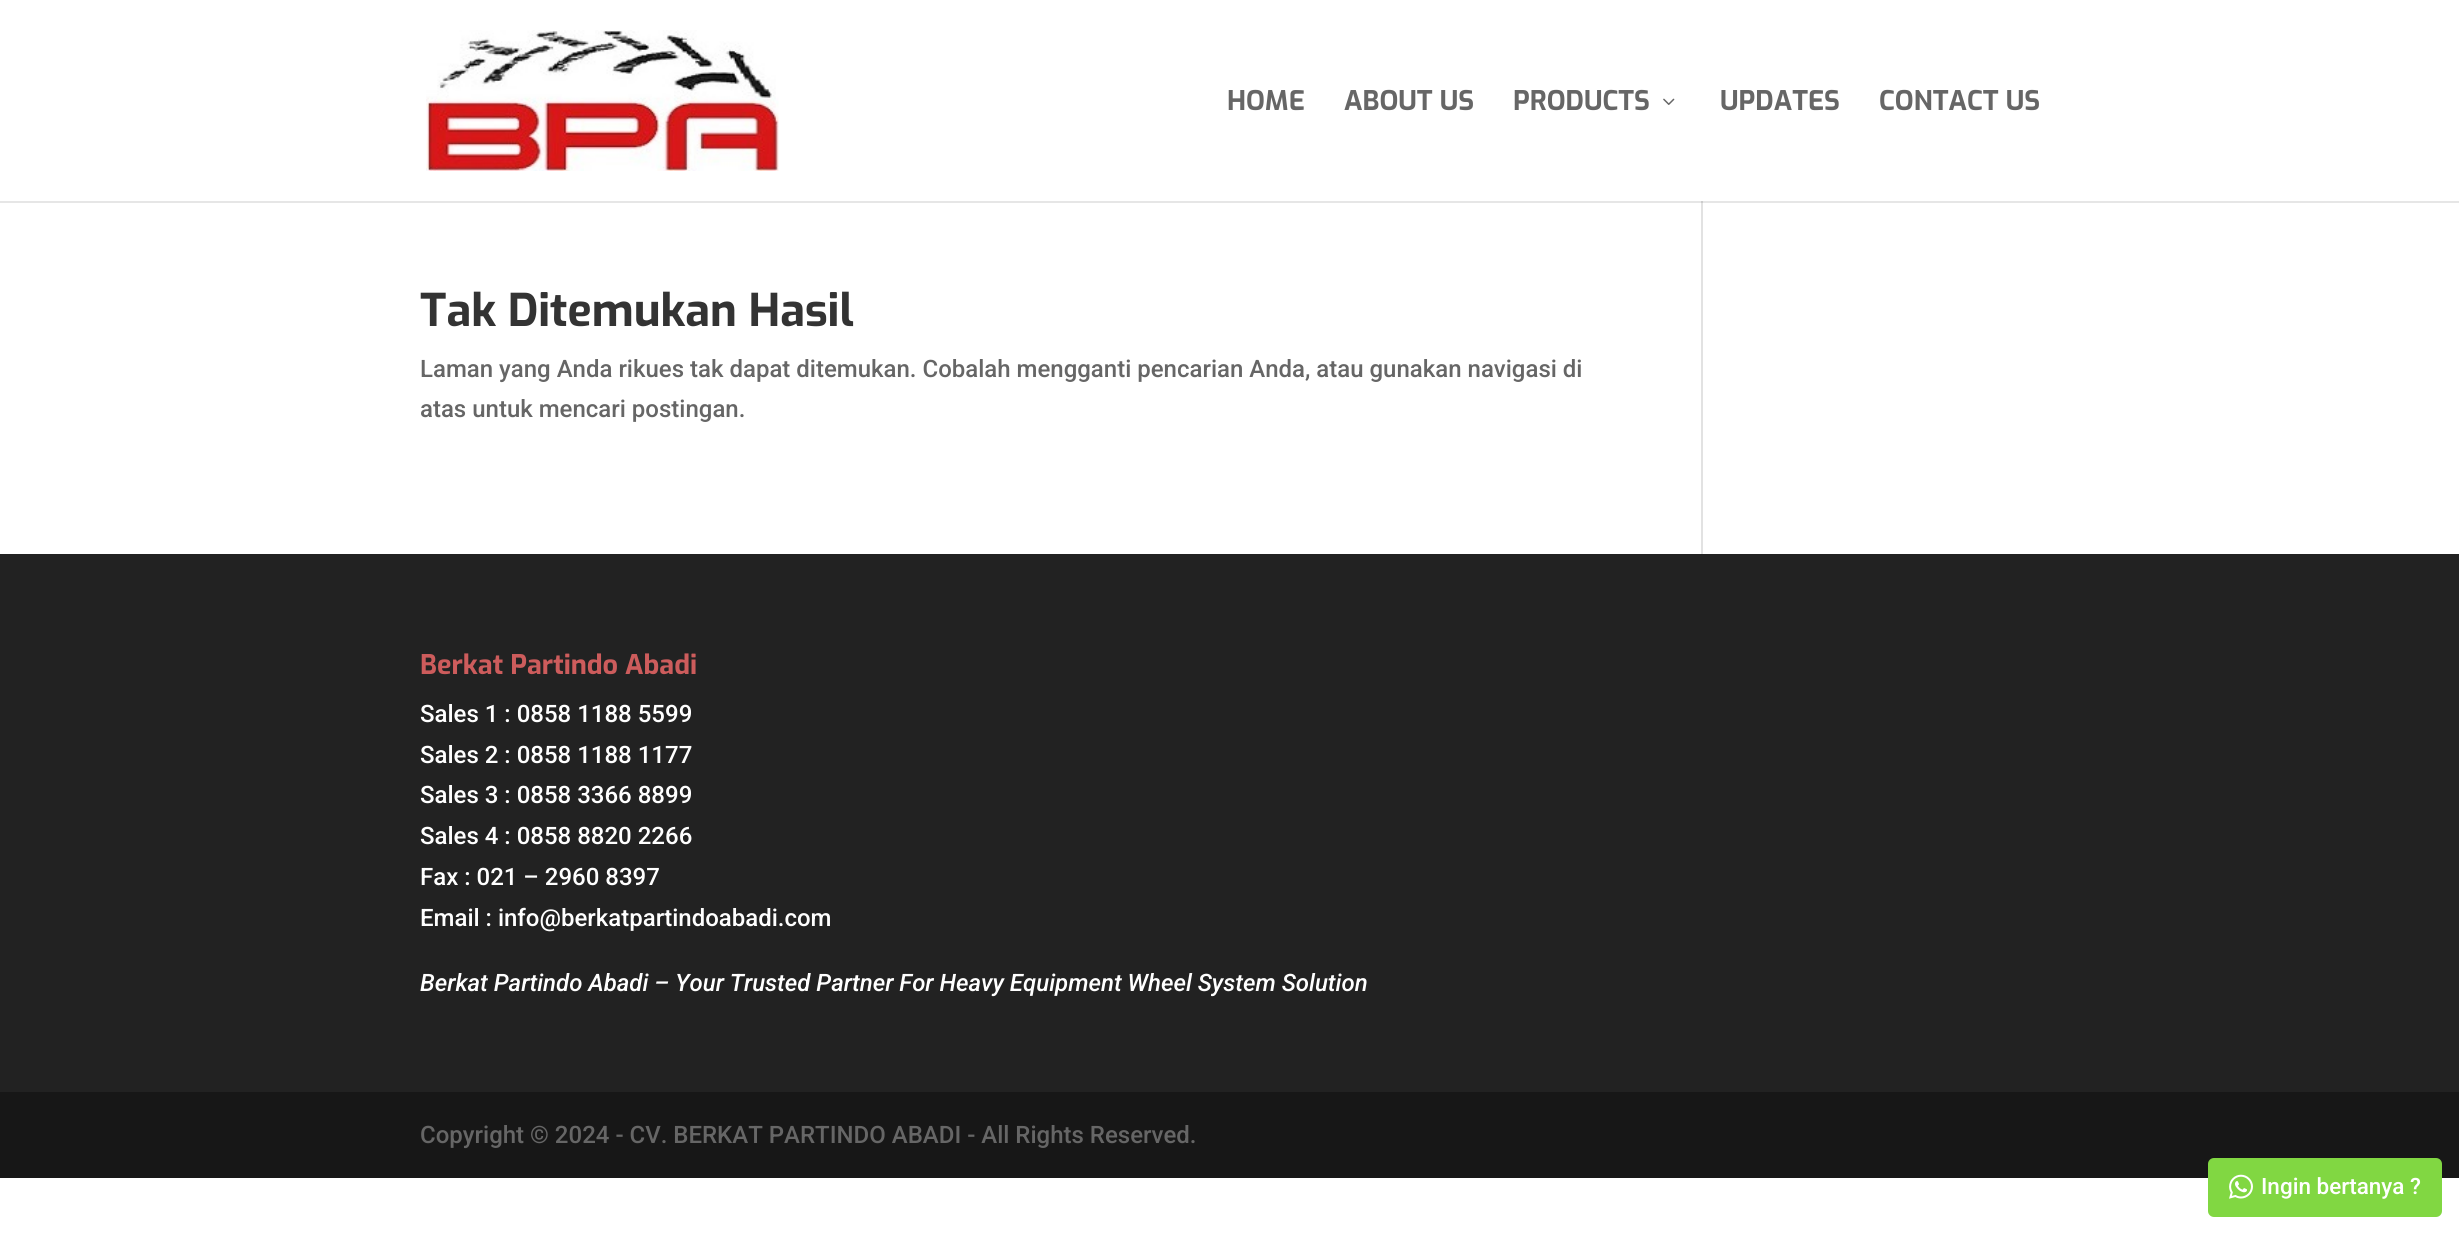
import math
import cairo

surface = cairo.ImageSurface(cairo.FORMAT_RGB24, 2459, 1234)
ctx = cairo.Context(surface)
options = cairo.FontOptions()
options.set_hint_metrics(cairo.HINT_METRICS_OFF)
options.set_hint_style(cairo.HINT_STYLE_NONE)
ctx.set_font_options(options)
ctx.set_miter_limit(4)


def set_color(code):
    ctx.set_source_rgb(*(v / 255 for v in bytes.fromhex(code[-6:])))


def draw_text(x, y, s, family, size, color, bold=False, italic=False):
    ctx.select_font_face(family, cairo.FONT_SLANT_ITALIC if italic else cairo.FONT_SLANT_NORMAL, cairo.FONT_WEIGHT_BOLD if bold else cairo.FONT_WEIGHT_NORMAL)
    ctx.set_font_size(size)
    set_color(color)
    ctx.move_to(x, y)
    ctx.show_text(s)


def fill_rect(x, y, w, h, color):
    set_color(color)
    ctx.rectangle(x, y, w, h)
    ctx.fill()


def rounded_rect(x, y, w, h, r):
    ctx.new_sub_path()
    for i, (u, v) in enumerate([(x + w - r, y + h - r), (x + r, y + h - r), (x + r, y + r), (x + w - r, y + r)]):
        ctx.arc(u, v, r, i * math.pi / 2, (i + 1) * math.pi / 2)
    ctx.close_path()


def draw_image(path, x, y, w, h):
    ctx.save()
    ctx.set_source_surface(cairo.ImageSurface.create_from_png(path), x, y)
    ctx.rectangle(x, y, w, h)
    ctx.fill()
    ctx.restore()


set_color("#ffffff")
ctx.paint()
fill_rect(0, 201, 2459, 2, "#e6e6e6")
draw_image("assets/img1.png", 426, 30, 353, 141)
draw_text(1227, 110, "HOME", "Exo", 27, "#666666", bold=True)
draw_text(1344, 110, "ABOUT US", "Exo", 27, "#666666", bold=True)
draw_text(1513, 110, "PRODUCTS", "Exo", 27, "#666666", bold=True)
draw_image("assets/img2.png", 1663, 98, 12, 7)
draw_text(1720, 110, "UPDATES", "Exo", 27, "#666666", bold=True)
draw_text(1879, 110, "CONTACT US", "Exo", 27, "#666666", bold=True)
draw_text(420, 326, "Tak Ditemukan Hasil", "Exo", 45, "#333333", bold=True)
draw_text(420, 377, "Laman yang Anda rikues tak dapat ditemukan. Cobalah mengganti pencarian Anda, atau gunakan navigasi di", "Roboto Medium", 24, "#666666")
draw_text(420, 417, "atas untuk mencari postingan.", "Roboto Medium", 24, "#666666")
fill_rect(1701, 201, 2, 353, "#e2e2e2")
fill_rect(1701, 201, 2, 2, "#cbcbcb")
fill_rect(0, 554, 2459, 538, "#222222")
draw_text(420, 674, "Berkat Partindo Abadi", "Exo", 27, "#cd5c5c", bold=True)
draw_text(420, 722, "Sales 1 : 0858 1188 5599", "Roboto Medium", 24, "#ffffff")
draw_text(420, 763, "Sales 2 : 0858 1188 1177", "Roboto Medium", 24, "#ffffff")
draw_text(420, 803, "Sales 3 : 0858 3366 8899", "Roboto Medium", 24, "#ffffff")
draw_text(420, 844, "Sales 4 : 0858 8820 2266", "Roboto Medium", 24, "#ffffff")
draw_text(420, 885, "Fax : 021 – 2960 8397", "Roboto Medium", 24, "#ffffff")
draw_text(420, 926, "Email : info@berkatpartindoabadi.com", "Roboto Medium", 24, "#ffffff")
draw_text(420, 991, "Berkat Partindo Abadi – Your Trusted Partner For Heavy Equipment Wheel System Solution", "Roboto Medium", 24, "#ffffff", italic=True)
fill_rect(0, 1092, 2459, 86, "#171717")
draw_text(420, 1143, "Copyright © 2024 - CV. BERKAT PARTINDO ABADI - All Rights Reserved.", "Roboto Medium", 24, "#666666")
set_color("#81d742")
rounded_rect(2208, 1158, 234, 59, 6)
ctx.fill()
draw_image("assets/img3.png", 2229, 1174, 24, 25)
draw_text(2261, 1194, "Ingin bertanya ?", "Roboto Medium", 22.5, "#ffffff")
surface.write_to_png("output.png")
